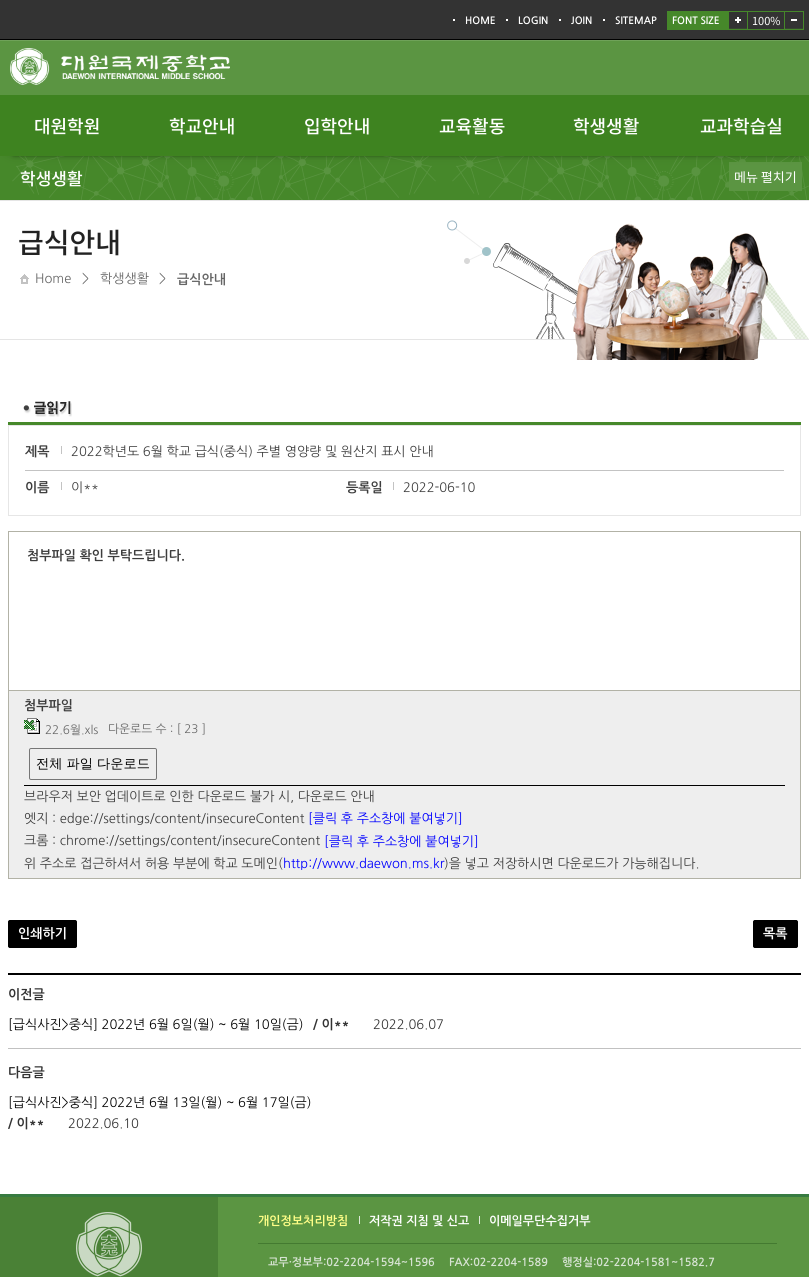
import math
import cairo

surface = cairo.ImageSurface(cairo.FORMAT_RGB24, 809, 1277)
ctx = cairo.Context(surface)
options = cairo.FontOptions()
options.set_hint_metrics(cairo.HINT_METRICS_OFF)
options.set_hint_style(cairo.HINT_STYLE_NONE)
ctx.set_font_options(options)
ctx.set_miter_limit(4)


def set_color(code):
    ctx.set_source_rgb(*(v / 255 for v in bytes.fromhex(code[-6:])))


def draw_text(x, y, s, family, size, color, bold=False, italic=False):
    ctx.select_font_face(family, cairo.FONT_SLANT_ITALIC if italic else cairo.FONT_SLANT_NORMAL, cairo.FONT_WEIGHT_BOLD if bold else cairo.FONT_WEIGHT_NORMAL)
    ctx.set_font_size(size)
    set_color(color)
    ctx.move_to(x, y)
    ctx.show_text(s)


def fill_rect(x, y, w, h, color):
    set_color(color)
    ctx.rectangle(x, y, w, h)
    ctx.fill()


def rounded_rect(x, y, w, h, r):
    ctx.new_sub_path()
    for i, (u, v) in enumerate([(x + w - r, y + h - r), (x + r, y + h - r), (x + r, y + r), (x + w - r, y + r)]):
        ctx.arc(u, v, r, i * math.pi / 2, (i + 1) * math.pi / 2)
    ctx.close_path()


def draw_shadow(x, y, w, h, r, blur, alpha):
    ctx.push_group_with_content(cairo.CONTENT_ALPHA)
    ctx.set_operator(cairo.OPERATOR_SOURCE)
    for i in range(15, -16, -2):
        e = blur * i / 6
        if min(w, h) + 2 * e > 0:
            ctx.set_source_rgba(0, 0, 0, alpha * math.erfc((i - 1) / 8.5) / 2)
            rounded_rect(x - e, y - e, w + 2 * e, h + 2 * e, max(0, min(r + e + blur * .6, min(w, h) / 2 + e)))
            ctx.fill()
    ctx.mask(ctx.pop_group())


def draw_image(path, x, y, w, h):
    ctx.save()
    ctx.set_source_surface(cairo.ImageSurface.create_from_png(path), x, y)
    ctx.rectangle(x, y, w, h)
    ctx.fill()
    ctx.restore()


set_color("#ffffff")
ctx.paint()
fill_rect(0, 156, 12, 44, "#46882a")
draw_image("assets/img5.png", 12, 156, 797, 44)
fill_rect(729, 162, 73, 29, "#5b9542")
set_color("#000000")
draw_shadow(12, 16, 785, 131, 0, 7, 0.75)
fill_rect(0, 41, 809, 54, "#5b9542")
draw_image("assets/img1.png", 0, 0, 809, 41)
fill_rect(453, 19, 2, 2, "#ffffff")
draw_text(465, 24, "HOME", "NanumGothic", 10, "#ffffff", bold=True)
fill_rect(506, 19, 2, 2, "#ffffff")
draw_text(518, 24, "LOGIN", "NanumGothic", 10, "#ffffff", bold=True)
fill_rect(559, 19, 2, 2, "#ffffff")
draw_text(571, 24, "JOIN", "NanumGothic", 10, "#ffffff", bold=True)
fill_rect(603, 19, 2, 2, "#ffffff")
draw_text(615, 24, "SITEMAP", "NanumGothic", 10, "#ffffff", bold=True)
fill_rect(667, 11, 137, 19, "#46882a")
draw_text(672, 24, "FONT SIZE", "NanumGothic", 10, "#ffffff", bold=True)
draw_image("assets/img2.png", 729, 12, 18, 17)
fill_rect(748, 12, 36, 17, "#333333")
draw_text(752, 25, "100%", "Noto Sans KR", 11, "#ffffff")
draw_image("assets/img3.png", 785, 12, 18, 17)
draw_image("assets/img4.png", 10, 48, 220, 37)
set_color("#000000")
draw_shadow(14, 113, 789, 41, 0, 2.5, 0.75)
fill_rect(0, 95, 809, 60, "#3e8320")
fill_rect(0, 155, 809, 1, "#3f8320")
draw_text(34, 133, "대원학원", "Noto Sans KR Medium", 18, "#ffffff")
draw_text(169, 133, "학교안내", "Noto Sans KR Medium", 18, "#ffffff")
draw_text(304, 133, "입학안내", "Noto Sans KR Medium", 18, "#ffffff")
draw_text(439, 133, "교육활동", "Noto Sans KR Medium", 18, "#ffffff")
draw_text(573, 133, "학생생활", "Noto Sans KR Medium", 18, "#ffffff")
draw_text(700, 133, "교과학습실", "Noto Sans KR Medium", 18, "#ffffff")
draw_text(20, 185, "학생생활", "Noto Sans KR Medium", 17, "#ffffff")
draw_text(734, 182, "메뉴 펼치기", "Noto Sans KR", 13, "#ffffff")
draw_image("assets/img6.png", 447, 220, 362, 119)
fill_rect(0, 200, 809, 1, "#e5e5e5")
draw_text(18, 253, "급식안내", "Noto Sans KR Medium", 28, "#222222")
fill_rect(0, 339, 809, 1, "#e5e5e5")
draw_image("assets/img7.png", 572, 223, 197, 137)
draw_image("assets/img8.png", 20, 274, 9, 10)
draw_text(35, 283, "Home", "NanumGothic", 13, "#666666")
draw_text(82, 283, ">", "NanumGothic", 13, "#666666")
draw_text(100, 283, "학생생활", "NanumGothic", 13, "#666666")
draw_text(159, 283, ">", "NanumGothic", 13, "#666666")
draw_text(177, 284, "급식안내", "NanumGothic", 13, "#666666", bold=True)
draw_image("assets/img9.png", 23, 401, 49, 16)
fill_rect(8, 422, 793, 3, "#46882a")
ctx.rectangle(8.5, 425.5, 792, 90)
set_color("#e6e6e6")
ctx.set_line_width(1)
ctx.stroke()
fill_rect(25, 470, 759, 1, "#c3c3c3")
fill_rect(61, 446, 1, 8, "#c3c3c3")
draw_text(25, 456, "제목", "NanumGothic", 13, "#3d3d3d", bold=True)
draw_text(71, 456, "2022학년도 6월 학교 급식(중식) 주별 영양량 및 원산지 표시 안내", "NanumGothic", 13, "#3d3d3d")
fill_rect(61, 482, 1, 8, "#c3c3c3")
draw_text(25, 492, "이름", "NanumGothic", 13, "#3d3d3d", bold=True)
draw_text(71, 492, "이**", "NanumGothic", 13, "#3d3d3d")
fill_rect(393, 482, 1, 8, "#c3c3c3")
draw_text(346, 492, "등록일", "NanumGothic", 13, "#3d3d3d", bold=True)
draw_text(403, 492, "2022-06-10", "NanumGothic", 13, "#3d3d3d")
ctx.rectangle(8.5, 531.5, 792, 159)
set_color("#b2b2a6")
ctx.stroke()
draw_text(27, 560, "첨부파일 확인 부탁드립니다.", "NanumGothic", 13, "#3d3d3d", bold=True)
fill_rect(9, 691, 791, 187, "#eeeeee")
fill_rect(800, 691, 1, 188, "#b2b2a6")
fill_rect(8, 878, 793, 1, "#b2b2a6")
fill_rect(8, 691, 1, 188, "#b2b2a6")
draw_text(24, 710, "첨부파일", "NanumGothic", 13, "#3d3d3d", bold=True)
draw_image("assets/img10.png", 24, 718, 16, 16)
draw_text(45, 734, "22.6월.xls", "NanumGothic", 11.75, "#666666")
draw_text(108, 733, "다운로드 수 : [ 23 ]", "NanumGothic", 11.75, "#666666")
rounded_rect(29.5, 748.5, 127, 31, 1.5)
set_color("#767676")
ctx.stroke()
draw_text(36, 768, "전체 파일 다운로드", "WenQuanYi Zen Hei Medium", 13.25, "#000000")
fill_rect(24, 785, 761, 1, "#000000")
draw_text(24, 801, "브라우저 보안 업데이트로 인한 다운로드 불가 시, 다운로드 안내", "NanumGothic", 13, "#3d3d3d")
draw_text(24, 823, "엣지 : edge://settings/content/insecureContent", "NanumGothic", 13, "#3d3d3d")
draw_text(308, 823, "[클릭 후 주소창에 붙여넣기]", "NanumGothic", 13, "#0000ff")
draw_text(24, 845, "크롬 : chrome://settings/content/insecureContent", "NanumGothic", 13, "#3d3d3d")
draw_text(324, 846, "[클릭 후 주소창에 붙여넣기]", "NanumGothic", 13, "#0000ff")
draw_text(24, 868, "위 주소로 접근하셔서 허용 부분에 학교 도메인(", "NanumGothic", 13, "#3d3d3d")
draw_text(283, 868, "http://www.daewon.ms.kr", "NanumGothic", 13, "#0000ff")
draw_text(444, 868, ")을 넣고 저장하시면 다운로드가 가능해집니다.", "NanumGothic", 13, "#3d3d3d")
set_color("#000000")
rounded_rect(8, 920, 69, 28, 2)
ctx.fill()
rounded_rect(8, 920, 69, 28, 3)
ctx.fill()
draw_text(18, 938, "인쇄하기", "NanumGothic", 13, "#ffffff", bold=True)
set_color("#000000")
rounded_rect(753, 920, 45, 28, 2)
ctx.fill()
rounded_rect(753, 920, 45, 28, 3)
ctx.fill()
draw_text(763, 938, "목록", "NanumGothic", 13, "#ffffff", bold=True)
fill_rect(8, 973, 793, 2, "#000000")
fill_rect(8, 1048, 793, 1, "#c1c1c1")
draw_text(8, 999, "이전글", "NanumGothic", 13, "#333333", bold=True)
draw_text(8, 1029, "[급식사진>중식] 2022년 6월 6일(월) ~ 6월 10일(금)", "NanumGothic", 13, "#000000")
draw_text(313, 1029, "/ 이**", "NanumGothic", 13, "#333333", bold=True)
draw_text(373, 1029, "2022.06.07", "NanumGothic", 13, "#333333")
draw_text(8, 1077, "다음글", "NanumGothic", 13, "#333333", bold=True)
draw_text(8, 1107, "[급식사진>중식] 2022년 6월 13일(월) ~ 6월 17일(금)", "NanumGothic", 13, "#000000")
draw_text(8, 1128, "/ 이**", "NanumGothic", 13, "#333333", bold=True)
draw_text(68, 1128, "2022.06.10", "NanumGothic", 13, "#333333")
fill_rect(218, 1197, 591, 80, "#5b9542")
fill_rect(0, 1194, 809, 3, "#377b41")
fill_rect(0, 1197, 218, 80, "#4a8136")
draw_image("assets/img11.png", 76, 1212, 66, 65)
fill_rect(258, 1243, 519, 1, "#447a31")
draw_text(258, 1225, "개인정보처리방침", "NanumGothic", 12, "#fffe87", bold=True)
fill_rect(359, 1216, 1, 8, "#deead9")
draw_text(369, 1225, "저작권 지침 및 신고", "NanumGothic", 12, "#ffffff", bold=True)
fill_rect(479, 1216, 1, 8, "#deead9")
draw_text(489, 1225, "이메일무단수집거부", "NanumGothic", 12, "#ffffff", bold=True)
draw_text(268, 1266, "교무·정보부:02-2204-1594~1596", "NanumGothic", 11, "#d7e3d3", bold=True)
draw_text(449, 1266, "FAX:02-2204-1589", "NanumGothic", 11, "#d7e3d3", bold=True)
draw_text(562, 1266, "행정실:02-2204-1581~1582.7", "NanumGothic", 11, "#d7e3d3", bold=True)
surface.write_to_png("output.png")
